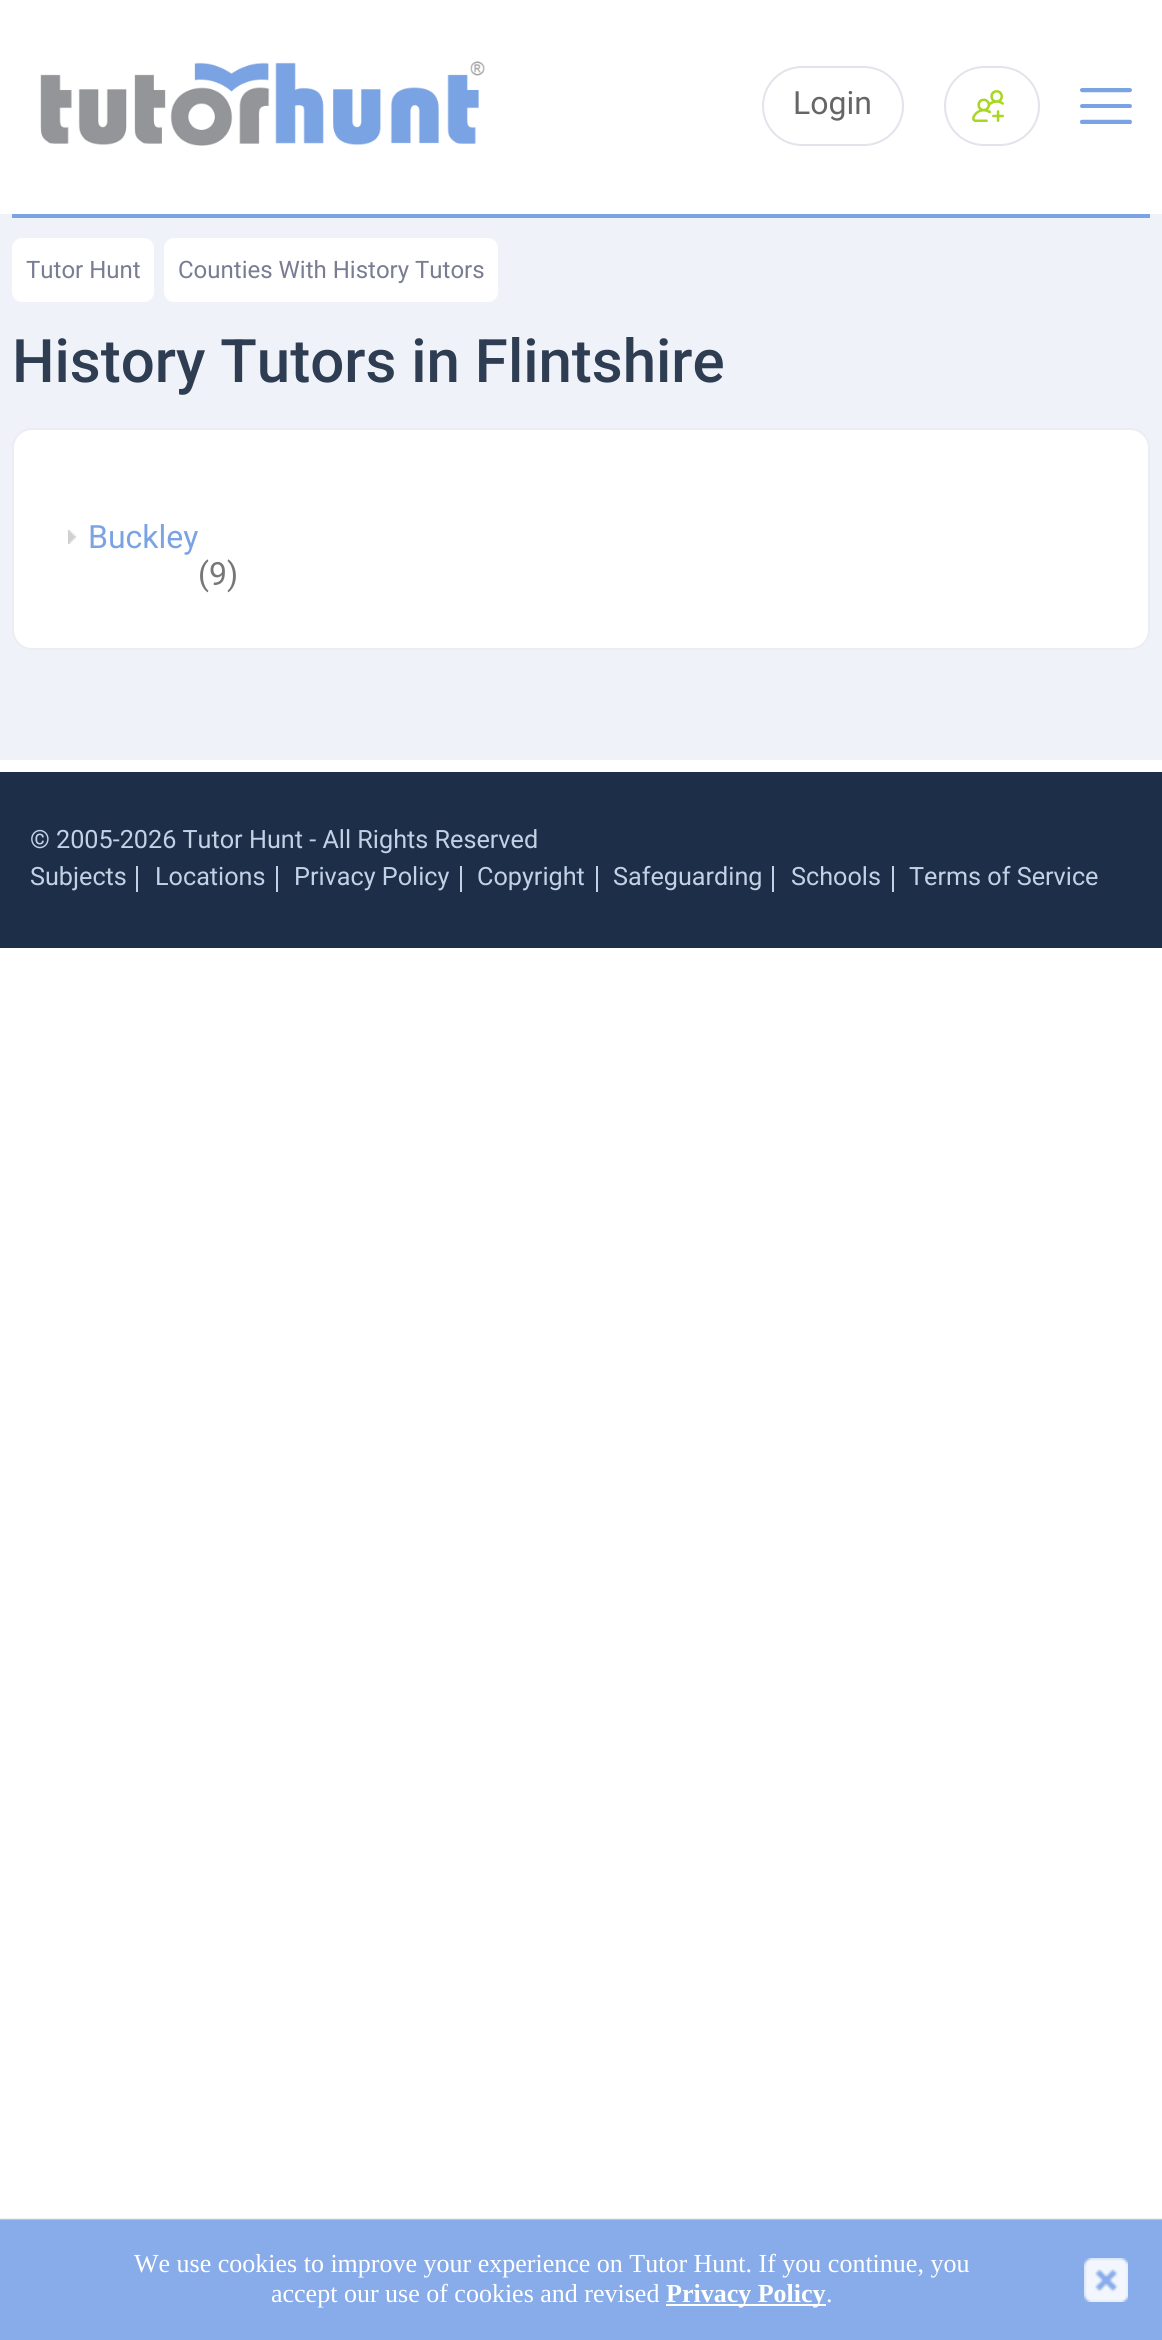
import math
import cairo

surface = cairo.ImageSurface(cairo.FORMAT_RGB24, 1162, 2340)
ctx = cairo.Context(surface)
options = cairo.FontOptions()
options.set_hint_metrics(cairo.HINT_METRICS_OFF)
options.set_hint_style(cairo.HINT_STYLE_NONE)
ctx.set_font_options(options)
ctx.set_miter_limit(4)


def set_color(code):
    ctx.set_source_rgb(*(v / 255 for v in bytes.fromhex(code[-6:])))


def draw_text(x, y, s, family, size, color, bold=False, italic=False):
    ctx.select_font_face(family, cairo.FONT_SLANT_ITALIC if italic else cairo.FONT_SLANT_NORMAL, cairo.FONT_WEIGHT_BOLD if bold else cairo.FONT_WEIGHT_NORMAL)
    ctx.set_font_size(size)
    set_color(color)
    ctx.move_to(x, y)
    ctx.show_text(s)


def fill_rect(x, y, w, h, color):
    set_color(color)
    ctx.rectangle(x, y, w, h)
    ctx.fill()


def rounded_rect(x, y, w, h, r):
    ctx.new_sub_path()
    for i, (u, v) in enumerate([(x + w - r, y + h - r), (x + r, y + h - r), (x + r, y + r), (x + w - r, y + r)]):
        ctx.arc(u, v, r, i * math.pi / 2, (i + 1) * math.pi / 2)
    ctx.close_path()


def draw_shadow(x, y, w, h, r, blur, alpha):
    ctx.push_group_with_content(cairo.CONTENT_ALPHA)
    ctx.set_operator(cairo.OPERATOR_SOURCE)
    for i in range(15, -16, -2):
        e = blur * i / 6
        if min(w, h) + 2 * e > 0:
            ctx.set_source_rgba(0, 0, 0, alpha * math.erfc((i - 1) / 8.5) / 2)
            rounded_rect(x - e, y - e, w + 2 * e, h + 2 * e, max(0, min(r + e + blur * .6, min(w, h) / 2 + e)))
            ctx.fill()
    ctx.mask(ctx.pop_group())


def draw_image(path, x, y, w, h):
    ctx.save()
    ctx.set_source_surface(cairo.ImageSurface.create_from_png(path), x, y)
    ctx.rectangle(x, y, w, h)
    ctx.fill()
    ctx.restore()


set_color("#ffffff")
ctx.paint()
draw_image("assets/img1.png", 40, 61, 445, 85)
rounded_rect(763, 67, 140, 78, 39)
set_color("#e2e3eb")
ctx.stroke()
draw_text(793, 114, "Login", "Roboto", 32, "#666666")
rounded_rect(945, 67, 94, 78, 39)
set_color("#e2e3eb")
ctx.stroke()
draw_image("assets/img2.png", 972, 90, 32, 32)
draw_image("assets/img3.png", 1080, 88, 52, 36)
fill_rect(0, 214, 1162, 546, "#eff2f8")
fill_rect(12, 214, 1138, 4, "#7aa3e6")
set_color("#ffffff")
rounded_rect(12, 238, 142, 64, 10)
ctx.fill()
draw_text(26, 278, "Tutor Hunt", "Roboto", 24, "#797c92")
set_color("#ffffff")
rounded_rect(164, 238, 334, 64, 10)
ctx.fill()
draw_text(178, 278, "Counties With History Tutors", "Roboto", 24, "#797c92")
draw_text(12, 382, "History Tutors in Flintshire", "Roboto Medium", 60, "#2e3d52")
set_color("#ffffff")
rounded_rect(13, 429, 1136, 220, 19)
ctx.fill_preserve()
set_color("#ecedf2")
ctx.stroke()
draw_image("assets/img4.png", 68, 530, 8, 14)
draw_text(88, 548, "Buckley", "Roboto", 32, "#7aa3e4")
draw_text(198, 585, "(9)", "Roboto", 32, "#777777")
fill_rect(0, 772, 1162, 176, "#1c2e48")
draw_text(30, 848, "© 2005-2026 Tutor Hunt - All Rights Reserved", "Roboto", 25.2, "#c3d1e5")
draw_text(30, 885, "Subjects", "Roboto", 25.2, "#c3d1e5")
fill_rect(136, 866, 2, 26, "#c3d1e5")
draw_text(155, 885, "Locations", "Roboto", 25.2, "#c3d1e5")
fill_rect(276, 866, 2, 26, "#c3d1e5")
draw_text(294, 885, "Privacy Policy", "Roboto", 25.2, "#c3d1e5")
fill_rect(460, 866, 2, 26, "#c3d1e5")
draw_text(477, 885, "Copyright", "Roboto", 25.2, "#c3d1e5")
fill_rect(596, 866, 2, 26, "#c3d1e5")
draw_text(613, 885, "Safeguarding", "Roboto", 25.2, "#c3d1e5")
fill_rect(772, 866, 2, 26, "#c3d1e5")
draw_text(791, 885, "Schools", "Roboto", 25.2, "#c3d1e5")
fill_rect(892, 866, 2, 26, "#c3d1e5")
draw_text(909, 885, "Terms of Service", "Roboto", 25.2, "#c3d1e5")
set_color("#535353")
draw_shadow(-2, 2220, 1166, 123, 0, 1, 1)
fill_rect(0, 2220, 1162, 120, "#87ace9")
draw_text(134, 2272, "We use cookies to improve your experience on Tutor Hunt. If you continue, you", "Liberation Serif", 26, "#ffffff")
draw_text(271, 2302, "accept our use of cookies and revised", "Liberation Serif", 26, "#ffffff")
fill_rect(666, 2304, 160, 2, "#ffffff")
draw_text(666, 2302, "Privacy Policy", "Liberation Serif", 26, "#ffffff", bold=True)
draw_text(826, 2302, ".", "Liberation Serif", 26, "#ffffff")
draw_image("assets/img5.png", 1084, 2258, 44, 44)
surface.write_to_png("output.png")
